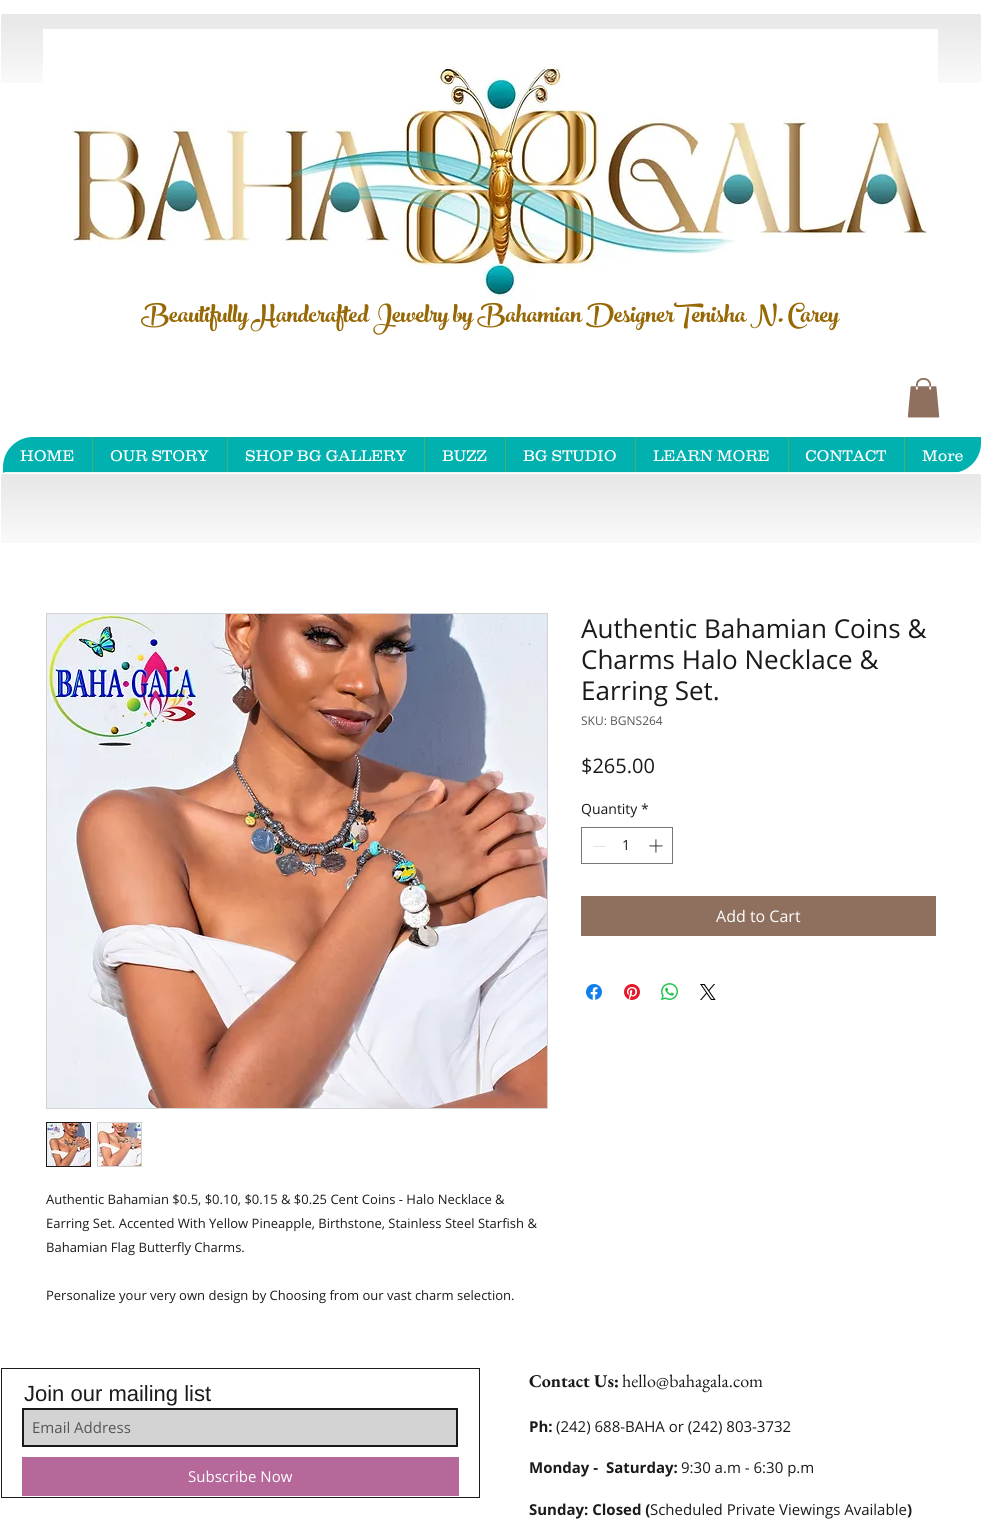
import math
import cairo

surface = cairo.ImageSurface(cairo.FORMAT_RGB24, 981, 1526)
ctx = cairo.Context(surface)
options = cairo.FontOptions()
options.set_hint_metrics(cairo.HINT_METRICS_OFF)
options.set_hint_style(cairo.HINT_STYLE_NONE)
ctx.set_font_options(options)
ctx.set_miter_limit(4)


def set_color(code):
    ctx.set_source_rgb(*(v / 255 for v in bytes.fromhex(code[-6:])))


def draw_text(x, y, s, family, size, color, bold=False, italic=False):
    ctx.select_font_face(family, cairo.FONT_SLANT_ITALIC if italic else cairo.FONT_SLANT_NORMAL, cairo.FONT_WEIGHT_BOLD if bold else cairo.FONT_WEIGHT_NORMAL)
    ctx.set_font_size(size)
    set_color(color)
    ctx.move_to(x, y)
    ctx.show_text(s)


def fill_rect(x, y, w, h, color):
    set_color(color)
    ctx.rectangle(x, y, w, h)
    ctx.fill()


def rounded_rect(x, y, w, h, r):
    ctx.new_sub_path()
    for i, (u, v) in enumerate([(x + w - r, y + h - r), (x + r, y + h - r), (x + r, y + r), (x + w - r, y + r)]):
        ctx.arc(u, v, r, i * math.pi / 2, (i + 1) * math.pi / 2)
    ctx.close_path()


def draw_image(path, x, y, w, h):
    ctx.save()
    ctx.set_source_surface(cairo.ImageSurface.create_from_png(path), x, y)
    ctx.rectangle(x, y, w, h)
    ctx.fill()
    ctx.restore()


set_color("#ffffff")
ctx.paint()
draw_image("assets/img1.png", 1, 14, 980, 69)
draw_image("assets/img2.png", 43, 29, 895, 272)
draw_text(141, 322, "Beautifully Handcrafted Jewelry by Bahamian DesignerTenisha N. Carey", "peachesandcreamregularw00", 38, "#976806")
draw_image("assets/img3.png", 907, 378, 33, 40)
set_color("#01b1af")
ctx.new_path()
ctx.move_to(33, 437)
ctx.line_to(981, 437)
ctx.line_to(981, 443)
ctx.curve_to(981, 459.5, 967.5, 473, 951, 473)
ctx.line_to(3, 473)
ctx.line_to(3, 467)
ctx.curve_to(3, 450.5, 16.5, 437, 33, 437)
ctx.close_path()
ctx.fill()
draw_text(20, 461, "HOME", "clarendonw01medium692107 Light", 16, "#ffffff")
fill_rect(92, 437, 1, 36, "#47b06c")
draw_text(110, 461, "OUR STORY", "clarendonw01medium692107 Light", 16, "#ffffff")
fill_rect(227, 437, 1, 36, "#47b06c")
draw_text(245, 461, "SHOP BG GALLERY", "clarendonw01medium692107 Light", 16, "#ffffff")
fill_rect(424, 437, 1, 36, "#47b06c")
draw_text(442, 461, "BUZZ", "clarendonw01medium692107 Light", 16, "#ffffff")
fill_rect(505, 437, 1, 36, "#47b06c")
draw_text(523, 461, "BG STUDIO", "clarendonw01medium692107 Light", 16, "#ffffff")
fill_rect(635, 437, 1, 36, "#47b06c")
draw_text(653, 461, "LEARN MORE", "clarendonw01medium692107 Light", 16, "#ffffff")
fill_rect(788, 437, 1, 36, "#47b06c")
draw_text(805, 461, "CONTACT", "clarendonw01medium692107 Light", 16, "#ffffff")
fill_rect(904, 437, 1, 36, "#47b06c")
draw_text(922, 461, "More", "clarendonw01medium692107 Light", 16, "#ffffff")
ctx.set_source_rgba(1, 1, 1, 0.9)
rounded_rect(1, 472, 980, 880, 5)
ctx.fill()
draw_image("assets/img1.png", 1, 474, 980, 69)
draw_text(581, 638, "Authentic Bahamian Coins &", "Open Sans", 26, "#1a1a1a")
draw_text(581, 669, "Charms Halo Necklace &", "Open Sans", 26, "#1a1a1a")
draw_text(581, 700, "Earring Set.", "Open Sans", 26, "#1a1a1a")
draw_text(581, 725, "SKU: BGNS264", "Open Sans", 12, "#565656")
draw_text(581, 773, "$265.00", "Open Sans", 20, "#1a1a1a")
draw_text(581, 814, "Quantity", "Open Sans", 14, "#1a1a1a")
draw_text(641, 814, "*", "Open Sans", 14, "#1a1a1a")
ctx.rectangle(581.5, 827.5, 91, 36)
set_color("#767676")
ctx.set_line_width(1)
ctx.stroke()
fill_rect(593, 846, 13, 1, "#e3e3e3")
draw_text(622, 850, "1", "Open Sans", 14, "#1a1a1a")
draw_image("assets/img4.png", 649, 839, 14, 14)
fill_rect(581, 896, 355, 40, "#8f705e")
draw_text(716, 922, "Add to Cart", "Open Sans", 16, "#ffffff")
draw_image("assets/img5.png", 586, 984, 16, 16)
draw_image("assets/img6.png", 624, 984, 16, 16)
draw_image("assets/img7.png", 661, 983, 17, 17)
draw_image("assets/img8.png", 700, 984, 16, 16)
ctx.rectangle(46.5, 613.5, 501, 495)
set_color("#d4d3d3")
ctx.stroke()
draw_image("assets/img9.png", 47, 614, 500, 494)
ctx.rectangle(46.5, 1122.5, 44, 44)
set_color("#1a1a1a")
ctx.stroke()
draw_image("assets/img10.png", 47, 1123, 43, 43)
fill_rect(97, 1122, 45, 45, "#d4d3d3")
draw_image("assets/img11.png", 98, 1123, 43, 43)
draw_text(46, 1204, "Authentic Bahamian $0.5, $0.10, $0.15 & $0.25 Cent Coins - Halo Necklace &", "Open Sans", 13, "#1a1a1a")
draw_text(46, 1228, "Earring Set. Accented With Yellow Pineapple, Birthstone, Stainless Steel Starfish &", "Open Sans", 13, "#1a1a1a")
draw_text(46, 1252, "Bahamian Flag Butterfly Charms.", "Open Sans", 13, "#1a1a1a")
draw_text(46, 1300, "Personalize your very own design by Choosing from our vast charm selection.", "Open Sans", 13, "#1a1a1a")
ctx.rectangle(1.5, 1368.5, 478, 129)
ctx.stroke()
draw_text(24, 1401, "Join our mailing list", "Liberation Sans", 22, "#1a1a1a")
set_color("#d4d3d3")
ctx.rectangle(23, 1409, 434, 37)
ctx.fill_preserve()
set_color("#1a1a1a")
ctx.set_line_width(2)
ctx.stroke()
draw_text(32, 1433, "Email Address", "Open Sans", 15, "#565656")
fill_rect(22, 1457, 437, 39, "#b6689a")
draw_text(188, 1482, "Subscribe Now", "Open Sans", 15, "#ffffff")
draw_text(529, 1387, "Contact Us:", "EB Garamond", 18, "#1a1a1a", bold=True)
draw_text(622, 1387, "hello@bahagala.com", "EB Garamond", 18, "#1a1a1a")
draw_text(529, 1432, "Ph:", "Open Sans", 15, "#1a1a1a", bold=True)
draw_text(556, 1432, "(242) 688-BAHA or (242) 803-3732", "Open Sans", 15, "#1a1a1a")
draw_text(529, 1473, "Monday -  Saturday:", "Open Sans", 15, "#1a1a1a", bold=True)
draw_text(681, 1473, "9:30 a.m - 6:30 p.m", "Open Sans", 15, "#1a1a1a")
draw_text(529, 1515, "Sunday: Closed (", "Open Sans", 15, "#1a1a1a", bold=True)
draw_text(650, 1515, "Scheduled Private Viewings Available", "Open Sans", 15, "#1a1a1a")
draw_text(907, 1515, ")", "Open Sans", 15, "#1a1a1a", bold=True)
surface.write_to_png("output.png")
